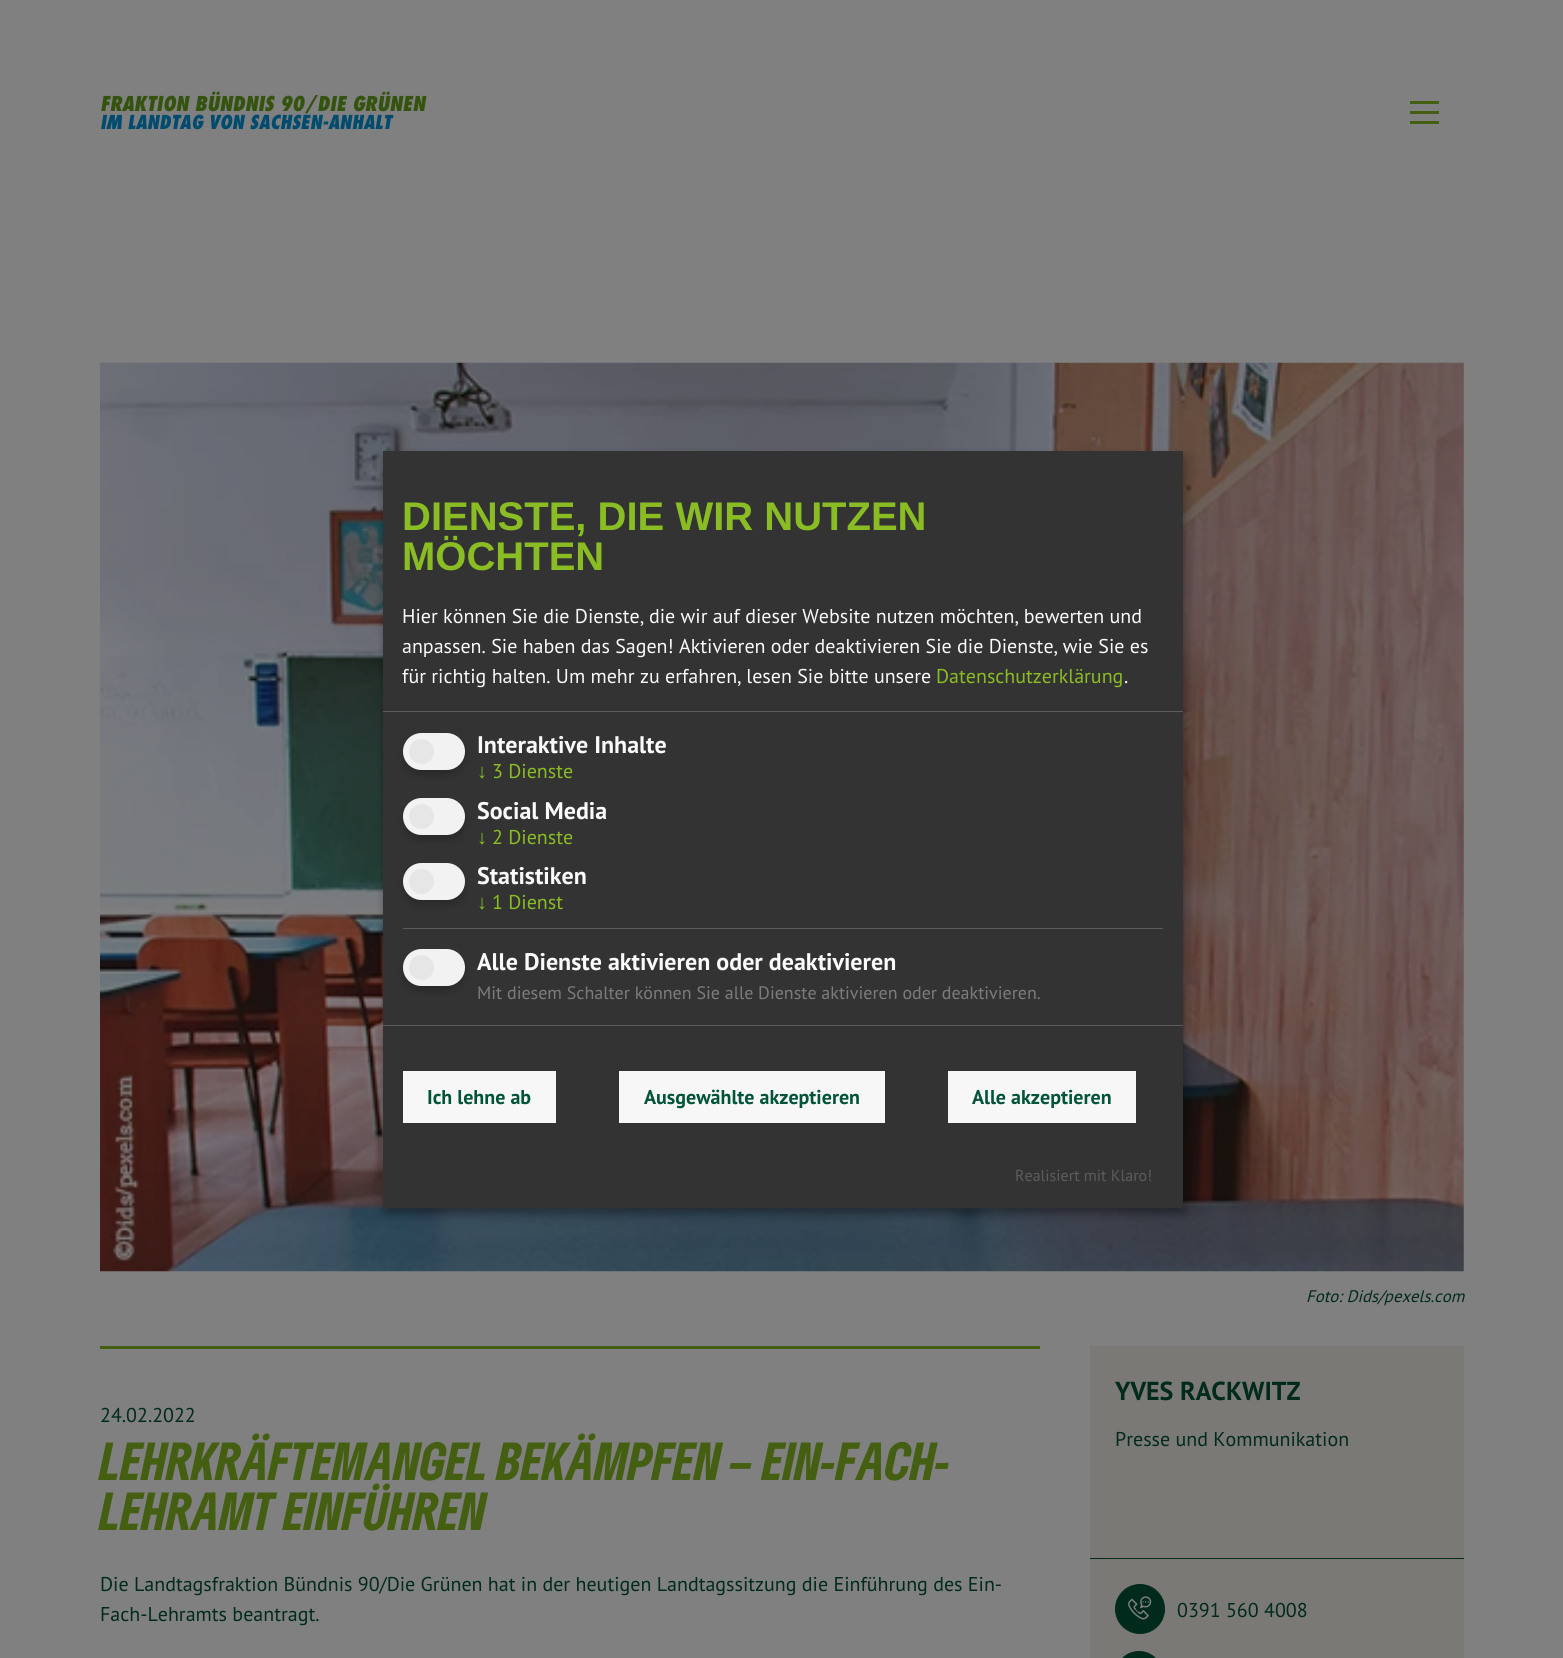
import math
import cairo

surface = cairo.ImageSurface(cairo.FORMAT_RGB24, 1563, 1658)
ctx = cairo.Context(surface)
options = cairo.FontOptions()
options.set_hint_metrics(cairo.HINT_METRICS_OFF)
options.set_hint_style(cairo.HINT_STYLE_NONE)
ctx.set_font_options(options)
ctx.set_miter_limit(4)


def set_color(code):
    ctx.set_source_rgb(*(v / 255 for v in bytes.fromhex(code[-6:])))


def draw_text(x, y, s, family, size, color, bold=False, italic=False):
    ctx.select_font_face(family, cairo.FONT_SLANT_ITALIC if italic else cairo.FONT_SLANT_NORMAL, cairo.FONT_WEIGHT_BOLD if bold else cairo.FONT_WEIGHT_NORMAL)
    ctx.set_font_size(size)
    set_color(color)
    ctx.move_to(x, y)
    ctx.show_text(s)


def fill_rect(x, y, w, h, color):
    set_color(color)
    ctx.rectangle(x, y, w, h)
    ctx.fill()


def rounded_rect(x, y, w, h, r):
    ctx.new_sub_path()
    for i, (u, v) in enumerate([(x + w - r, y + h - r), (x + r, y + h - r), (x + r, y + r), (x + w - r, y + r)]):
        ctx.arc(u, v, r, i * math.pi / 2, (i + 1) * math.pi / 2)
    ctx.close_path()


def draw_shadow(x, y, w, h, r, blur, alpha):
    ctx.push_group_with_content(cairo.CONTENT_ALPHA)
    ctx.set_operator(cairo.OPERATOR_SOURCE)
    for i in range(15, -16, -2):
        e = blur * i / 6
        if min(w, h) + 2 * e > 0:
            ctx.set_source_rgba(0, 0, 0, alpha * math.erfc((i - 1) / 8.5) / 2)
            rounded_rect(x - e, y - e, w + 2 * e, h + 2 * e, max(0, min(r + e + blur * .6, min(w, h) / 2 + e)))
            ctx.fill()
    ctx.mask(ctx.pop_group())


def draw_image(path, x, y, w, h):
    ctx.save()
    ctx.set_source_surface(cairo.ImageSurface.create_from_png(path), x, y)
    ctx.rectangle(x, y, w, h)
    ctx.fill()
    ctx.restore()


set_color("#808080")
ctx.paint()
draw_text(100, 111, "FRAKTION BÜNDNIS 90/DIE GRÜNEN", "Futura ExtraBold", 20, "#34530e", italic=True)
draw_text(100, 129, "IM LANDTAG VON SACHSEN-ANHALT", "Futura ExtraBold", 18.75, "#004b6e", italic=True)
fill_rect(1410, 101, 29, 3, "#455f12")
fill_rect(1410, 111, 29, 3, "#455f12")
fill_rect(1410, 121, 29, 3, "#455f12")
draw_image("assets/img1.png", 100, 362, 1364, 910)
set_color("#000000")
draw_shadow(389, 458, 800, 756, 0, 6, 0.19)
draw_shadow(383, 456, 800, 757, 0, 4, 0.2)
fill_rect(383, 451, 800, 757, "#333333")
fill_rect(383, 711, 800, 1, "#5c5c5c")
draw_text(402, 530, "DIENSTE, DIE WIR NUTZEN", "Liberation Sans", 40, "#8abd24", bold=True)
draw_text(402, 570, "MÖCHTEN", "Liberation Sans", 40, "#8abd24", bold=True)
draw_text(402, 623, "Hier können Sie die Dienste, die wir auf dieser Website nutzen möchten, bewerten und", "PT Sans", 20, "#fafafa")
draw_text(402, 653, "anpassen. Sie haben das Sagen! Aktivieren oder deaktivieren Sie die Dienste, wie Sie es", "PT Sans", 20, "#fafafa")
draw_text(402, 683, "für richtig halten. Um mehr zu erfahren, lesen Sie bitte unsere", "PT Sans", 20, "#fafafa")
draw_text(936, 683, "Datenschutzerklärung", "PT Sans", 20, "#8abd24")
draw_text(1124, 683, ".", "PT Sans", 20, "#fafafa")
set_color("#000000")
draw_shadow(403, 738, 62, 37, 18.5, 4, 0.2)
set_color("#f2f2f2")
rounded_rect(403, 733, 62, 37, 18.5)
ctx.fill()
set_color("#e6e6e6")
ctx.arc(421.5, 751.5, 12.5, 0, 2 * math.pi)
ctx.fill()
draw_text(477, 753, "Interaktive Inhalte", "PT Sans", 24, "#fafafa", bold=True)
draw_text(477, 778, "↓", "Liberation Sans", 20, "#8abd24")
draw_text(492, 778, "3 Dienste", "PT Sans", 20, "#8abd24")
set_color("#000000")
draw_shadow(403, 803, 62, 37, 18.5, 4, 0.2)
set_color("#f2f2f2")
rounded_rect(403, 798, 62, 37, 18.5)
ctx.fill()
set_color("#e6e6e6")
ctx.arc(421.5, 816.5, 12.5, 0, 2 * math.pi)
ctx.fill()
draw_text(477, 819, "Social Media", "PT Sans", 24, "#fafafa", bold=True)
draw_text(477, 844, "↓", "Liberation Sans", 20, "#8abd24")
draw_text(492, 844, "2 Dienste", "PT Sans", 20, "#8abd24")
set_color("#000000")
draw_shadow(403, 868, 62, 37, 18.5, 4, 0.2)
set_color("#f2f2f2")
rounded_rect(403, 863, 62, 37, 18.5)
ctx.fill()
set_color("#e6e6e6")
ctx.arc(421.5, 881.5, 12.5, 0, 2 * math.pi)
ctx.fill()
draw_text(477, 884, "Statistiken", "PT Sans", 24, "#fafafa", bold=True)
draw_text(477, 909, "↓", "Liberation Sans", 20, "#8abd24")
draw_text(492, 909, "1 Dienst", "PT Sans", 20, "#8abd24")
fill_rect(403, 928, 760, 1, "#5c5c5c")
set_color("#000000")
draw_shadow(403, 954, 62, 37, 18.5, 4, 0.2)
set_color("#f2f2f2")
rounded_rect(403, 949, 62, 37, 18.5)
ctx.fill()
set_color("#e6e6e6")
ctx.arc(421.5, 967.5, 12.5, 0, 2 * math.pi)
ctx.fill()
draw_text(477, 970, "Alle Dienste aktivieren oder deaktivieren", "PT Sans", 24, "#fafafa", bold=True)
draw_text(477, 999, "Mit diesem Schalter können Sie alle Dienste aktivieren oder deaktivieren.", "PT Sans", 18, "#7c7c7c")
fill_rect(383, 1025, 800, 1, "#5c5c5c")
fill_rect(403, 1071, 153, 52, "#f7f7f7")
draw_text(427, 1104, "Ich lehne ab", "PT Sans", 20, "#005437", bold=True)
fill_rect(619, 1071, 266, 52, "#f7f7f7")
draw_text(644, 1104, "Ausgewählte akzeptieren", "PT Sans", 20, "#005437", bold=True)
fill_rect(948, 1071, 188, 52, "#f7f7f7")
draw_text(972, 1104, "Alle akzeptieren", "PT Sans", 20, "#005437", bold=True)
draw_text(1015, 1181, "Realisiert mit Klaro!", "PT Sans", 16, "#5c5c5c")
draw_text(1306, 1302, "Foto: Dids/pexels.com", "PT Sans", 16.75, "#002a1c", italic=True)
fill_rect(100, 1346, 940, 3, "#455f12")
draw_text(100, 1422, "24.02.2022", "PT Sans", 20, "#002a1c")
draw_text(100, 1480, "LEHRKRÄFTEMANGEL BEKÄMPFEN – EIN-FACH-", "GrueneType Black", 50, "#455f12", italic=True)
draw_text(100, 1530, "LEHRAMT EINFÜHREN", "GrueneType Black", 50, "#455f12", italic=True)
draw_text(100, 1591, "Die Landtagsfraktion Bündnis 90/Die Grünen hat in der heutigen Landtagssitzung die Einführung des Ein-", "PT Sans", 20, "#002a1c")
draw_text(100, 1621, "Fach-Lehramts beantragt.", "PT Sans", 20, "#002a1c")
fill_rect(1090, 1346, 374, 212, "#7b7975")
fill_rect(1090, 1558, 374, 1, "#002a1c")
draw_text(1115, 1400, "YVES RACKWITZ", "PT Sans", 26, "#002a1c", bold=True)
draw_text(1115, 1446, "Presse und Kommunikation", "PT Sans", 20, "#002a1c")
fill_rect(1090, 1559, 374, 99, "#7b7975")
set_color("#002a1c")
ctx.new_path()
ctx.arc(1140, 1609, 24.5, 0, 2 * math.pi)
ctx.fill_preserve()
ctx.set_line_width(1)
ctx.stroke()
draw_image("assets/img2.png", 1128, 1596, 24, 24)
draw_text(1177, 1617, "0391 560 4008", "PT Sans", 20, "#002a1c")
rounded_rect(1115.5, 1651.5, 47, 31, 23.5)
ctx.fill_preserve()
ctx.stroke()
surface.write_to_png("output.png")
